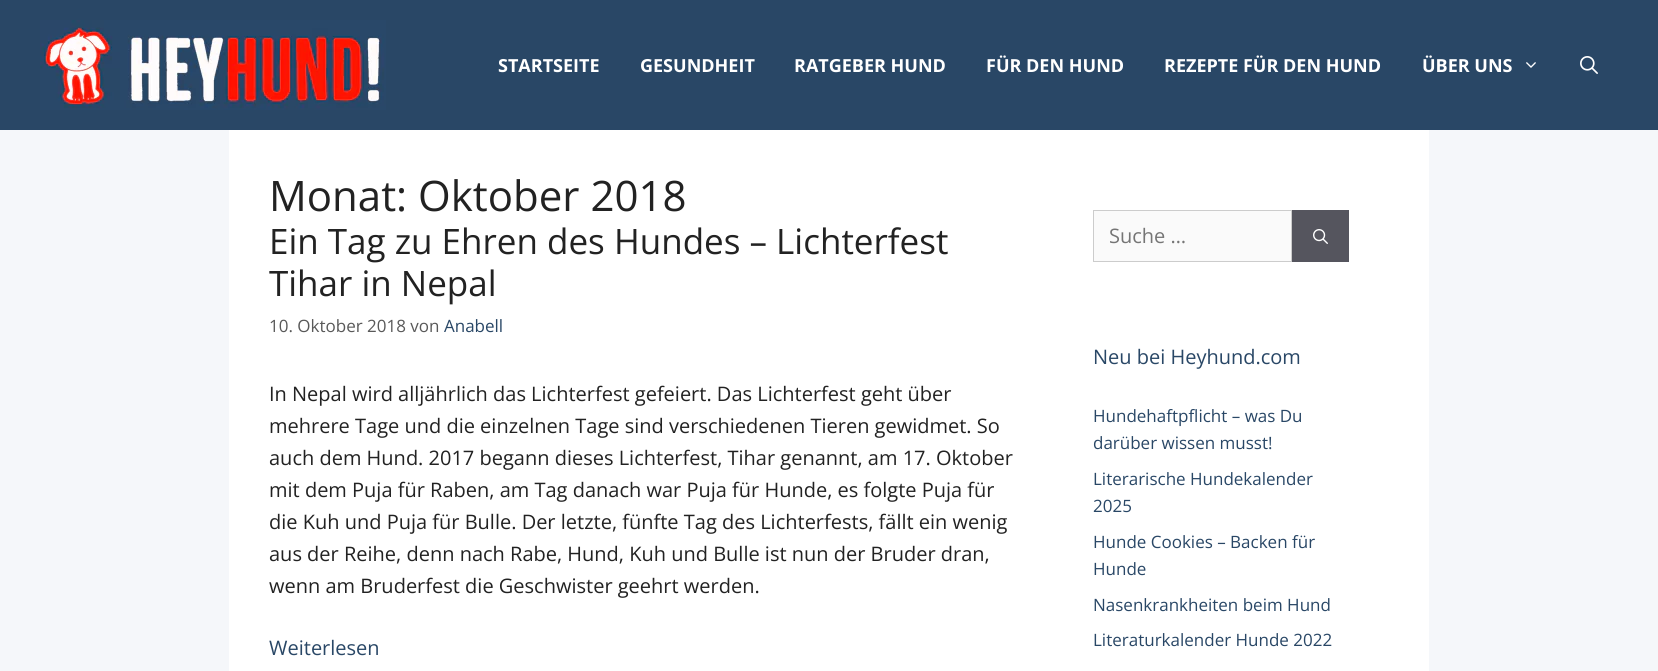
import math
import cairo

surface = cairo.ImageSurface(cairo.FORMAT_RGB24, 1658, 671)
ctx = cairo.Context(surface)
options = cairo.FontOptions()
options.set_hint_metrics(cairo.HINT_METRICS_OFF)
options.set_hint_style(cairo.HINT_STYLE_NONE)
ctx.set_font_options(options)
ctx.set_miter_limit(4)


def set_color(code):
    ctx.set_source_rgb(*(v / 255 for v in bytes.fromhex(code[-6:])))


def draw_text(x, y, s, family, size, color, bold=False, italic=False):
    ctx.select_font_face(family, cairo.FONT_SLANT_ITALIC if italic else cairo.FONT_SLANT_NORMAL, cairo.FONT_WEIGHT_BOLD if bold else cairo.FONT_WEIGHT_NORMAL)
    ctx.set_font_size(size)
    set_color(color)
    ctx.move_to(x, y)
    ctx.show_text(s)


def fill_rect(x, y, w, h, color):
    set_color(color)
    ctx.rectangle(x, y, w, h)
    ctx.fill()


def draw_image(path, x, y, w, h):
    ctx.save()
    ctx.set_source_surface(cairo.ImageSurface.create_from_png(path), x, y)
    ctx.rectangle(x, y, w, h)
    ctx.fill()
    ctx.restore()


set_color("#f5f7fa")
ctx.paint()
fill_rect(0, 0, 1658, 130, "#294766")
draw_image("assets/img1.png", 40, 20, 346, 90)
draw_text(498, 72, "STARTSEITE", "Open Sans", 18, "#ffffff", bold=True)
draw_text(640, 72, "GESUNDHEIT", "Open Sans", 18, "#ffffff", bold=True)
draw_text(794, 72, "RATGEBER HUND", "Open Sans", 18, "#ffffff", bold=True)
draw_text(986, 72, "FÜR DEN HUND", "Open Sans", 18, "#ffffff", bold=True)
draw_text(1164, 72, "REZEPTE FÜR DEN HUND", "Open Sans", 18, "#ffffff", bold=True)
draw_text(1422, 72, "ÜBER UNS", "Open Sans", 18, "#ffffff", bold=True)
draw_image("assets/img2.png", 1526, 62, 10, 6)
draw_image("assets/img3.png", 1580, 56, 18, 18)
fill_rect(229, 130, 1200, 541, "#ffffff")
draw_text(269, 211, "Monat: Oktober 2018", "Open Sans", 42, "#222222")
draw_text(269, 254, "Ein Tag zu Ehren des Hundes – Lichterfest", "Open Sans", 35, "#222222")
draw_text(269, 296, "Tihar in Nepal", "Open Sans", 35, "#222222")
draw_text(269, 332, "10. Oktober 2018 von", "Open Sans", 17, "#595959")
draw_text(444, 332, "Anabell", "Open Sans", 17, "#294766")
draw_text(269, 401, "In Nepal wird alljährlich das Lichterfest gefeiert. Das Lichterfest geht über", "Open Sans", 20, "#222222")
draw_text(269, 433, "mehrere Tage und die einzelnen Tage sind verschiedenen Tieren gewidmet. So", "Open Sans", 20, "#222222")
draw_text(269, 465, "auch dem Hund. 2017 begann dieses Lichterfest, Tihar genannt, am 17. Oktober", "Open Sans", 20, "#222222")
draw_text(269, 497, "mit dem Puja für Raben, am Tag danach war Puja für Hunde, es folgte Puja für", "Open Sans", 20, "#222222")
draw_text(269, 529, "die Kuh und Puja für Bulle. Der letzte, fünfte Tag des Lichterfests, fällt ein wenig", "Open Sans", 20, "#222222")
draw_text(269, 561, "aus der Reihe, denn nach Rabe, Hund, Kuh und Bulle ist nun der Bruder dran,", "Open Sans", 20, "#222222")
draw_text(269, 593, "wenn am Bruderfest die Geschwister geehrt werden.", "Open Sans", 20, "#222222")
draw_text(269, 655, "Weiterlesen", "Open Sans", 20, "#294766")
set_color("#fafafa")
ctx.rectangle(1093.5, 210.5, 198, 51)
ctx.fill_preserve()
set_color("#cccccc")
ctx.set_line_width(1)
ctx.stroke()
draw_text(1109, 243, "Suche …", "Open Sans", 20, "#757575")
fill_rect(1292, 210, 57, 52, "#55555e")
draw_image("assets/img4.png", 1313, 229, 15, 15)
draw_text(1093, 364, "Neu bei Heyhund.com", "Open Sans", 20, "#294766")
draw_text(1093, 422, "Hundehaftpflicht – was Du", "Open Sans", 17, "#294766")
draw_text(1093, 449, "darüber wissen musst!", "Open Sans", 17, "#294766")
draw_text(1093, 485, "Literarische Hundekalender", "Open Sans", 17, "#294766")
draw_text(1093, 512, "2025", "Open Sans", 17, "#294766")
draw_text(1093, 548, "Hunde Cookies – Backen für", "Open Sans", 17, "#294766")
draw_text(1093, 575, "Hunde", "Open Sans", 17, "#294766")
draw_text(1093, 611, "Nasenkrankheiten beim Hund", "Open Sans", 17, "#294766")
draw_text(1093, 646, "Literaturkalender Hunde 2022", "Open Sans", 17, "#294766")
surface.write_to_png("output.png")
